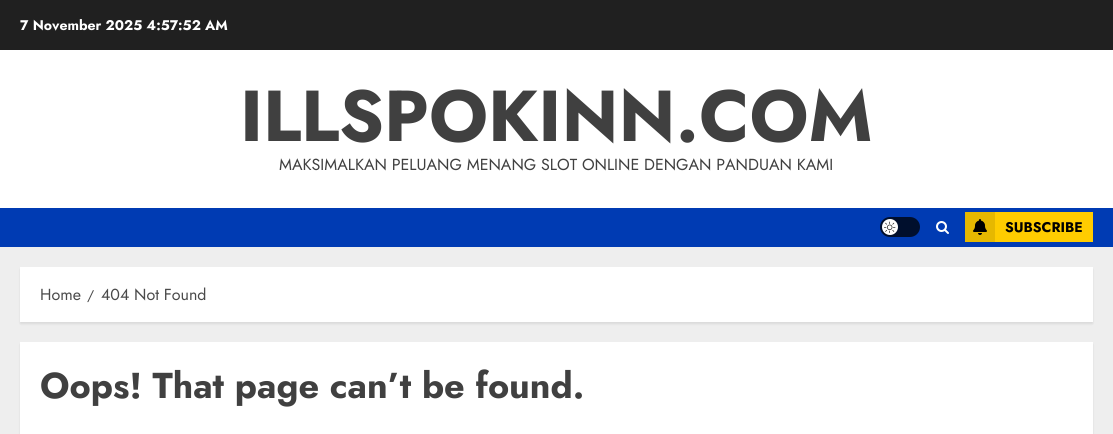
import math
import cairo

surface = cairo.ImageSurface(cairo.FORMAT_RGB24, 1113, 434)
ctx = cairo.Context(surface)
options = cairo.FontOptions()
options.set_hint_metrics(cairo.HINT_METRICS_OFF)
options.set_hint_style(cairo.HINT_STYLE_NONE)
ctx.set_font_options(options)
ctx.set_miter_limit(4)


def set_color(code):
    ctx.set_source_rgb(*(v / 255 for v in bytes.fromhex(code[-6:])))


def draw_text(x, y, s, family, size, color, bold=False, italic=False):
    ctx.select_font_face(family, cairo.FONT_SLANT_ITALIC if italic else cairo.FONT_SLANT_NORMAL, cairo.FONT_WEIGHT_BOLD if bold else cairo.FONT_WEIGHT_NORMAL)
    ctx.set_font_size(size)
    set_color(color)
    ctx.move_to(x, y)
    ctx.show_text(s)


def fill_rect(x, y, w, h, color):
    set_color(color)
    ctx.rectangle(x, y, w, h)
    ctx.fill()


def rounded_rect(x, y, w, h, r):
    ctx.new_sub_path()
    for i, (u, v) in enumerate([(x + w - r, y + h - r), (x + r, y + h - r), (x + r, y + r), (x + w - r, y + r)]):
        ctx.arc(u, v, r, i * math.pi / 2, (i + 1) * math.pi / 2)
    ctx.close_path()


def draw_shadow(x, y, w, h, r, blur, alpha):
    ctx.push_group_with_content(cairo.CONTENT_ALPHA)
    ctx.set_operator(cairo.OPERATOR_SOURCE)
    for i in range(15, -16, -2):
        e = blur * i / 6
        if min(w, h) + 2 * e > 0:
            ctx.set_source_rgba(0, 0, 0, alpha * math.erfc((i - 1) / 8.5) / 2)
            rounded_rect(x - e, y - e, w + 2 * e, h + 2 * e, max(0, min(r + e + blur * .6, min(w, h) / 2 + e)))
            ctx.fill()
    ctx.mask(ctx.pop_group())


def draw_image(path, x, y, w, h):
    ctx.save()
    ctx.set_source_surface(cairo.ImageSurface.create_from_png(path), x, y)
    ctx.rectangle(x, y, w, h)
    ctx.fill()
    ctx.restore()


set_color("#eeeeee")
ctx.paint()
fill_rect(0, 0, 1113, 50, "#202020")
draw_text(20, 30, "7 November 2025 4:57:52 AM", "Jost", 14, "#ffffff", bold=True)
fill_rect(0, 50, 1113, 158, "#ffffff")
draw_text(240, 141, "ILLSPOKINN.COM", "Jost", 72, "#404040", bold=True)
draw_text(279, 170, "MAKSIMALKAN PELUANG MENANG SLOT ONLINE DENGAN PANDUAN KAMI", "Jost", 16, "#404040")
fill_rect(0, 208, 1113, 39, "#003bb3")
set_color("#000f2d")
rounded_rect(880, 217, 40, 20, 10)
ctx.fill()
set_color("#ffffff")
ctx.arc(890, 227, 8, 0, 2 * math.pi)
ctx.fill()
draw_image("assets/img1.png", 884, 221, 12, 12)
draw_image("assets/img2.png", 936, 221, 13, 13)
fill_rect(995, 212, 98, 30, "#ffcc00")
fill_rect(965, 212, 30, 30, "#e6b800")
draw_image("assets/img3.png", 973, 219, 14, 16)
draw_text(1005, 232, "SUBSCRIBE", "Jost", 14, "#000000", bold=True)
set_color("#000000")
draw_shadow(20, 269, 1073, 55, 0, 1, 0.08)
fill_rect(20, 267, 1073, 55, "#ffffff")
draw_text(40, 300, "Home", "Jost", 16, "#4a4a4a")
draw_text(87, 300, "/", "Jost", 14, "#4a4a4a")
draw_text(101, 300, "404 Not Found", "Jost", 16, "#4a4a4a")
set_color("#000000")
draw_shadow(20, 344, 1073, 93, 0, 1, 0.08)
fill_rect(20, 342, 1073, 92, "#ffffff")
draw_text(40, 398, "Oops! That page can’t be found.", "Jost", 36, "#404040", bold=True)
surface.write_to_png("output.png")
